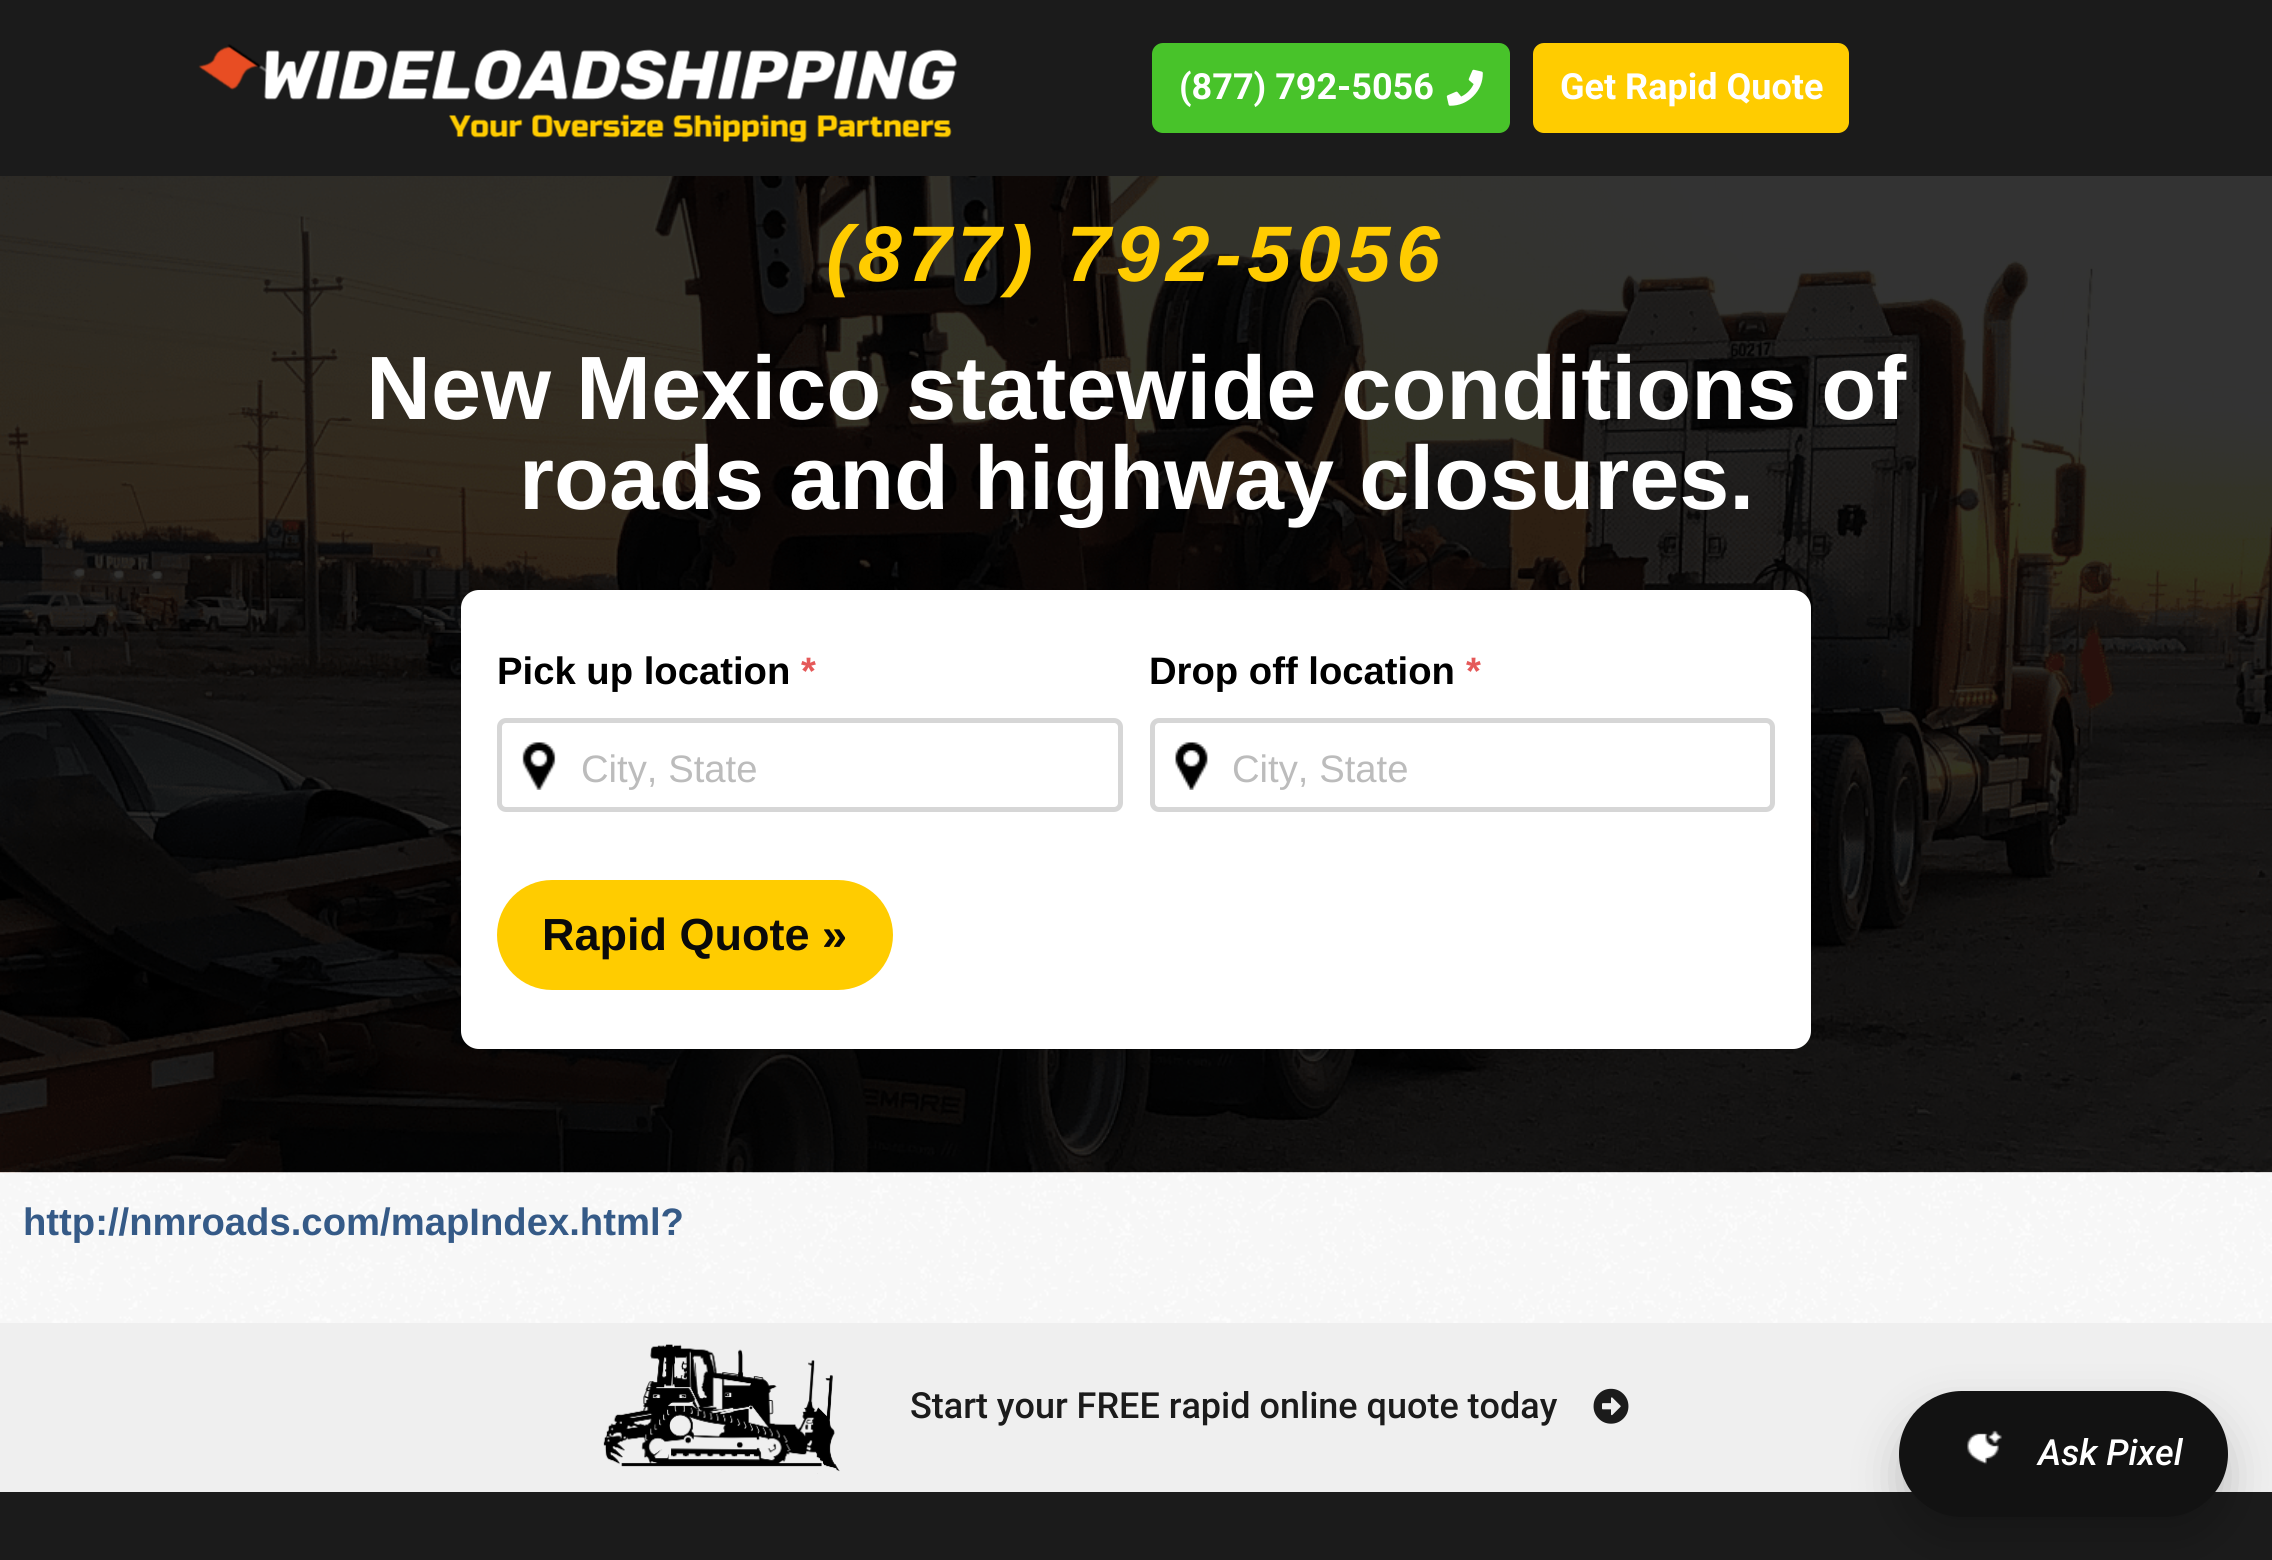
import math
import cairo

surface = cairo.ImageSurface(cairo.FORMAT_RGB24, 2272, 1560)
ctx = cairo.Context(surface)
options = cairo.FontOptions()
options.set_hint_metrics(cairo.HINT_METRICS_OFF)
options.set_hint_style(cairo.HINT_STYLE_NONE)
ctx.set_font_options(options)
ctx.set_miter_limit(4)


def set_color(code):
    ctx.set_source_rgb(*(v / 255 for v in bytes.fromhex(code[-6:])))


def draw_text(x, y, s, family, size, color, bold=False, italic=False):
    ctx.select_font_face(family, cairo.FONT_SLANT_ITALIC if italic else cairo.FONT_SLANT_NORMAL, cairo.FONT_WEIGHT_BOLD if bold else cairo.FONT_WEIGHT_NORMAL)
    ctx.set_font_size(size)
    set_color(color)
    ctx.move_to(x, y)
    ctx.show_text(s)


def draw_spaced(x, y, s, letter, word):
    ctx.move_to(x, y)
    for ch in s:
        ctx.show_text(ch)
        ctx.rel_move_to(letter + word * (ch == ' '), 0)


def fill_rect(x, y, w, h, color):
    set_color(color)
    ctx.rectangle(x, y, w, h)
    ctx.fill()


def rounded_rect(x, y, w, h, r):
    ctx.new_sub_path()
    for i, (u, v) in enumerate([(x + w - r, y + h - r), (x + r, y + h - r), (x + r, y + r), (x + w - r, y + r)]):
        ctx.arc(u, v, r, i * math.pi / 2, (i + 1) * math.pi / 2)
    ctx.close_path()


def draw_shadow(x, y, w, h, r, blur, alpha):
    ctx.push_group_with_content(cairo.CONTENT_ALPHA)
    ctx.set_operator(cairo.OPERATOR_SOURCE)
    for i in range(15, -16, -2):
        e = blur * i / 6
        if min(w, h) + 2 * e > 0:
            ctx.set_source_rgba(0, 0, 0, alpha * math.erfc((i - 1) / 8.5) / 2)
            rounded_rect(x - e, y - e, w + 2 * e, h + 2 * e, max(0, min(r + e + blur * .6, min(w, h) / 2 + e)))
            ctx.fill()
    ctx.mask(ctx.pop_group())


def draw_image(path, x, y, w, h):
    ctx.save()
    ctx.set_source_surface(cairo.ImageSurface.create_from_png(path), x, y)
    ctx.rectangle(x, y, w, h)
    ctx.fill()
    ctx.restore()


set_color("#ffffff")
ctx.paint()
draw_image("assets/img1.png", 0, 1172, 2272, 151)
fill_rect(0, 0, 2272, 176, "#1b1b1b")
draw_image("assets/img2.png", 198, 44, 759, 99)
set_color("#48c32a")
rounded_rect(1148.5, 39.5, 365, 97, 14.5)
ctx.fill_preserve()
set_color("#1b1b1b")
ctx.set_line_width(7)
ctx.stroke()
draw_text(1179, 99, "(877) 792-5056", "Roboto", 36, "#ffffff", bold=True)
draw_image("assets/img3.png", 1446, 69, 37, 37)
set_color("#ffcc00")
rounded_rect(1529.5, 39.5, 323, 97, 14.5)
ctx.fill_preserve()
set_color("#1b1b1b")
ctx.stroke()
draw_text(1560, 99, "Get Rapid Quote", "Roboto", 36, "#ffffff", bold=True)
draw_image("assets/img4.png", 0, 176, 2272, 997)
ctx.select_font_face("Liberation Sans", cairo.FONT_SLANT_ITALIC, cairo.FONT_WEIGHT_BOLD)
ctx.set_font_size(78.75)
set_color("#ffcc00")
draw_spaced(826, 281, "(877) 792-5056", 5.8, 0)
draw_text(366, 419, "New Mexico statewide conditions of", "Liberation Sans", 90, "#ffffff", bold=True)
draw_text(519, 509, "roads and highway closures.", "Liberation Sans", 90, "#ffffff", bold=True)
rounded_rect(461, 590, 1350, 459, 18)
ctx.fill()
draw_text(497, 684, "Pick up location", "Liberation Sans", 38.25, "#000000", bold=True)
draw_text(801, 684, "*", "Liberation Sans", 38.25, "#e55959", bold=True)
draw_image("assets/img5.png", 522, 742, 34, 48)
rounded_rect(499.5, 720.5, 621, 89, 6.5)
set_color("#d6d6d6")
ctx.set_line_width(5)
ctx.stroke()
draw_text(581, 782, "City, State", "Liberation Sans", 38.25, "#bcbcbc")
draw_text(1149, 684, "Drop off location", "Liberation Sans", 38.25, "#000000", bold=True)
draw_text(1466, 684, "*", "Liberation Sans", 38.25, "#e55959", bold=True)
draw_image("assets/img6.png", 1175, 742, 33, 48)
rounded_rect(1152.5, 720.5, 620, 89, 6.5)
set_color("#d6d6d6")
ctx.stroke()
draw_text(1232, 782, "City, State", "Liberation Sans", 38.25, "#bcbcbc")
set_color("#ffcc00")
rounded_rect(497, 880, 396, 110, 55)
ctx.fill()
draw_text(542, 950, "Rapid Quote »", "Liberation Sans", 45, "#0a0a0a", bold=True)
draw_text(23, 1235, "http://nmroads.com/mapIndex.html?", "Liberation Sans", 38.25, "#355a87", bold=True)
fill_rect(0, 1323, 2272, 169, "#efefef")
draw_image("assets/img7.png", 603, 1344, 237, 130)
draw_text(910, 1418, "Start your FREE rapid online quote today", "Roboto Medium", 36, "#1b1b1b")
draw_image("assets/img8.png", 1593, 1388, 36, 36)
fill_rect(0, 1492, 2272, 68, "#1b1b1b")
set_color("#000000")
draw_shadow(1899, 1413, 329, 126, 63, 22.5, 0.2)
set_color("#121212")
rounded_rect(1899, 1391, 329, 126, 63)
ctx.fill()
draw_image("assets/img9.png", 1967, 1430, 35, 35)
draw_text(2038, 1465, "Ask Pixel", "Roboto Medium", 36, "#ffffff", italic=True)
surface.write_to_png("output.png")
